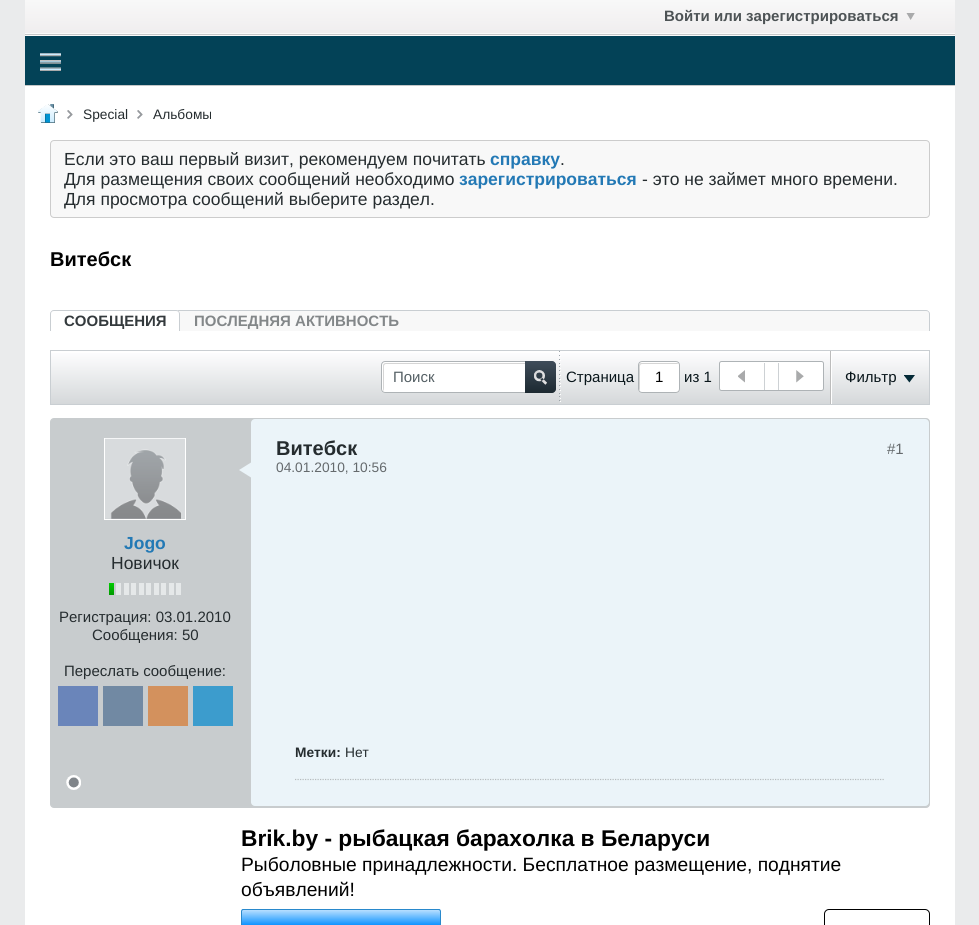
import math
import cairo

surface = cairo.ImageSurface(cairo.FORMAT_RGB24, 979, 925)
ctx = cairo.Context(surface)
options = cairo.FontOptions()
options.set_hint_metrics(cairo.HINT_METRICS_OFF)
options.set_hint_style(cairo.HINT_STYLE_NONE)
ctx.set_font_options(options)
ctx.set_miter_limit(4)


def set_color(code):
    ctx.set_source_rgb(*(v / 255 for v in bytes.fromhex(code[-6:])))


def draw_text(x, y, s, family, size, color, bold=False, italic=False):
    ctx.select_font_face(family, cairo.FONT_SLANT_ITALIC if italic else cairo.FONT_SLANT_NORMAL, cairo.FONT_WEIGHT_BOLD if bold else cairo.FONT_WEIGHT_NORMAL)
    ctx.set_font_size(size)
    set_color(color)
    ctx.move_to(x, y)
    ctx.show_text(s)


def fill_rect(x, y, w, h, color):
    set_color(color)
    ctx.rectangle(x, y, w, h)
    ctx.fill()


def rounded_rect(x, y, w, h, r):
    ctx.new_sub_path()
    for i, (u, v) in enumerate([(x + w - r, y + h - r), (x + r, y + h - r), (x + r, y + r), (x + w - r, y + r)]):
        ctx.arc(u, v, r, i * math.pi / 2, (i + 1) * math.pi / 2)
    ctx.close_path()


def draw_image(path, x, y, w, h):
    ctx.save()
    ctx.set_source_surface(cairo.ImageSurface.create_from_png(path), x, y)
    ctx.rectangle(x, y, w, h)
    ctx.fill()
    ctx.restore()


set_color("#eaebec")
ctx.paint()
gradient = cairo.LinearGradient(490, 0, 490, 35)
gradient.add_color_stop_rgba(0, 0.973, 0.973, 0.973, 1)
gradient.add_color_stop_rgba(1, 0.937, 0.929, 0.933, 1)
ctx.set_source(gradient)
ctx.rectangle(25, 0, 930, 33)
ctx.fill()
draw_text(664, 21, "Войти или зарегистрироваться", "Liberation Sans", 15, "#4d5355", bold=True)
draw_image("assets/img1.png", 906, 13, 9, 7)
fill_rect(25, 33, 930, 3, "#fafafa")
fill_rect(25, 34, 930, 1, "#c7c8c9")
fill_rect(25, 36, 930, 49, "#034257")
fill_rect(25, 85, 930, 1, "#c4c7c8")
draw_image("assets/img2.png", 40, 53, 21, 18)
fill_rect(25, 86, 930, 839, "#ffffff")
draw_image("assets/img3.png", 38, 104, 20, 19)
draw_image("assets/img4.png", 67, 110, 6, 9)
draw_text(83, 119, "Special", "Liberation Sans", 13.75, "#252c2f")
draw_image("assets/img4.png", 137, 110, 6, 9)
draw_text(153, 119, "Альбомы", "Liberation Sans", 13.75, "#252c2f")
set_color("#f8f8f8")
rounded_rect(50.5, 140.5, 879, 77, 3.5)
ctx.fill_preserve()
set_color("#cccccc")
ctx.set_line_width(1)
ctx.stroke()
draw_text(64, 165, "Если это ваш первый визит, рекомендуем почитать", "Liberation Sans", 17.5, "#252c2f")
draw_text(490, 165, "справку", "Liberation Sans", 17.5, "#2379b5", bold=True)
draw_text(560, 165, ".", "Liberation Sans", 17.5, "#252c2f")
draw_text(64, 185, "Для размещения своих сообщений необходимо", "Liberation Sans", 17.5, "#252c2f")
draw_text(459, 185, "зарегистрироваться", "Liberation Sans", 17.5, "#2379b5", bold=True)
draw_text(642, 185, "- это не займет много времени.", "Liberation Sans", 17.5, "#252c2f")
draw_text(64, 205, "Для просмотра сообщений выберите раздел.", "Liberation Sans", 17.5, "#252c2f")
draw_text(50, 266, "Витебск", "Liberation Sans", 20, "#000000", bold=True)
set_color("#f8f8f8")
ctx.new_path()
ctx.move_to(54, 310)
ctx.line_to(926, 310)
ctx.curve_to(928, 310, 930, 312, 930, 314)
ctx.line_to(930, 331)
ctx.line_to(50, 331)
ctx.line_to(50, 314)
ctx.curve_to(50, 312, 52, 310, 54, 310)
ctx.close_path()
ctx.fill()
set_color("#c9ced2")
ctx.set_fill_rule(cairo.FILL_RULE_EVEN_ODD)
ctx.new_path()
ctx.move_to(54, 310)
ctx.line_to(926, 310)
ctx.curve_to(928, 310, 930, 312, 930, 314)
ctx.line_to(930, 331)
ctx.line_to(50, 331)
ctx.line_to(50, 314)
ctx.curve_to(50, 312, 52, 310, 54, 310)
ctx.close_path()
ctx.move_to(54, 311)
ctx.line_to(926, 311)
ctx.curve_to(928, 311, 929, 312, 929, 314)
ctx.line_to(929, 331)
ctx.line_to(51, 331)
ctx.line_to(51, 314)
ctx.curve_to(51, 312, 52, 311, 54, 311)
ctx.close_path()
ctx.fill()
set_color("#ffffff")
ctx.new_path()
ctx.move_to(54, 310)
ctx.line_to(176, 310)
ctx.curve_to(178, 310, 180, 312, 180, 314)
ctx.line_to(180, 331)
ctx.line_to(50, 331)
ctx.line_to(50, 314)
ctx.curve_to(50, 312, 52, 310, 54, 310)
ctx.close_path()
ctx.fill()
set_color("#c9ced2")
ctx.new_path()
ctx.move_to(54, 310)
ctx.line_to(176, 310)
ctx.curve_to(178, 310, 180, 312, 180, 314)
ctx.line_to(180, 331)
ctx.line_to(50, 331)
ctx.line_to(50, 314)
ctx.curve_to(50, 312, 52, 310, 54, 310)
ctx.close_path()
ctx.move_to(54, 311)
ctx.line_to(176, 311)
ctx.curve_to(178, 311, 179, 312, 179, 314)
ctx.line_to(179, 331)
ctx.line_to(51, 331)
ctx.line_to(51, 314)
ctx.curve_to(51, 312, 52, 311, 54, 311)
ctx.close_path()
ctx.fill()
draw_text(64, 326, "СООБЩЕНИЯ", "Liberation Sans", 15, "#343a3d", bold=True)
draw_text(194, 326, "ПОСЛЕДНЯЯ АКТИВНОСТЬ", "Liberation Sans", 15, "#838789", bold=True)
gradient = cairo.LinearGradient(490, 351, 490, 404)
gradient.add_color_stop_rgba(0, 0.996, 0.996, 1, 1)
gradient.add_color_stop_rgba(1, 0.835, 0.847, 0.855, 1)
ctx.set_source(gradient)
ctx.rectangle(51, 353, 878, 51)
ctx.fill()
ctx.rectangle(50.5, 350.5, 879, 54)
set_color("#c9ced2")
ctx.stroke()
set_color("#ffffff")
rounded_rect(381, 361, 175, 32, 4)
ctx.fill()
set_color("#d5d5d5")
ctx.set_fill_rule(cairo.FILL_RULE_WINDING)
ctx.new_path()
ctx.move_to(386, 364)
ctx.line_to(555, 364)
ctx.curve_to(554, 363, 553, 363, 552, 363)
ctx.line_to(386, 363)
ctx.curve_to(384, 363, 383, 364, 383, 366)
ctx.line_to(383, 388)
ctx.curve_to(383, 389, 383, 390, 384, 391)
ctx.line_to(384, 370)
ctx.curve_to(384, 369, 383, 364, 386, 364)
ctx.close_path()
ctx.fill()
rounded_rect(381.5, 361.5, 174, 31, 3.5)
set_color("#aeb3b6")
ctx.stroke()
draw_text(393, 382, "Поиск", "Liberation Sans", 15, "#556065")
gradient = cairo.LinearGradient(541, 361, 541, 393)
gradient.add_color_stop_rgba(0, 0.251, 0.302, 0.353, 1)
gradient.add_color_stop_rgba(1, 0.11, 0.161, 0.192, 1)
ctx.set_source(gradient)
ctx.new_path()
ctx.move_to(525, 361)
ctx.line_to(552, 361)
ctx.curve_to(554, 361, 556, 363, 556, 365)
ctx.line_to(556, 389)
ctx.curve_to(556, 391, 554, 393, 552, 393)
ctx.line_to(525, 393)
ctx.close_path()
ctx.fill()
draw_image("assets/img5.png", 534, 370, 13, 15)
draw_image("assets/img6.png", 559, 351, 1, 50)
draw_image("assets/img7.png", 560, 356, 1, 46)
draw_text(566, 382, "Страница", "Liberation Sans", 15, "#09161b")
set_color("#ffffff")
rounded_rect(638, 361, 42, 32, 4)
ctx.fill()
set_color("#d5d5d5")
ctx.new_path()
ctx.move_to(642, 364)
ctx.line_to(678.5, 364)
ctx.curve_to(678, 363.5, 677.5, 363, 676.5, 363)
ctx.line_to(641.5, 363)
ctx.curve_to(640, 363, 639, 364, 639, 365.5)
ctx.line_to(639, 388.5)
ctx.curve_to(639, 389.5, 639.5, 390, 640, 390.5)
ctx.line_to(640, 370)
ctx.curve_to(640, 369, 639, 364, 642, 364)
ctx.close_path()
ctx.fill()
rounded_rect(638.5, 361.5, 41, 31, 3.5)
set_color("#aeb3b6")
ctx.stroke()
draw_text(655, 382, "1", "Liberation Sans", 15, "#000000")
draw_text(684, 382, "из 1", "Liberation Sans", 15, "#09161b")
set_color("#ffffff")
rounded_rect(719.5, 361.5, 104, 29, 2)
ctx.fill_preserve()
set_color("#aeb3b6")
ctx.stroke()
fill_rect(764, 363, 1, 27, "#cdd1d4")
draw_image("assets/img8.png", 738, 370, 7, 13)
fill_rect(778, 363, 1, 27, "#cdd1d4")
draw_image("assets/img9.png", 796, 370, 8, 13)
fill_rect(831, 351, 1, 53, "#ffffff")
fill_rect(830, 351, 1, 53, "#bcbcbc")
draw_text(845, 382, "Фильтр", "Liberation Sans", 15, "#09161b")
draw_image("assets/img10.png", 904, 375, 11, 8)
set_color("#c8ccce")
rounded_rect(50.5, 418.5, 879, 389, 3.5)
ctx.fill_preserve()
ctx.stroke()
ctx.rectangle(104.5, 438.5, 81, 81)
set_color("#ffffff")
ctx.stroke()
draw_image("assets/img11.png", 105, 438, 80, 81)
draw_text(124, 549, "Jogo", "Liberation Sans", 17.5, "#2379b5", bold=True)
draw_text(111, 569, "Новичок", "Liberation Sans", 17.5, "#252c2f")
gradient = cairo.LinearGradient(111, 583, 111, 595)
gradient.add_color_stop_rgba(0, 0, 0.8, 0, 1)
gradient.add_color_stop_rgba(1, 0, 0.6, 0, 1)
ctx.set_source(gradient)
ctx.rectangle(109, 583, 5, 12)
ctx.fill()
fill_rect(116, 583, 5, 12, "#e5e8e9")
fill_rect(124, 583, 5, 12, "#e5e8e9")
fill_rect(131, 583, 5, 12, "#e5e8e9")
fill_rect(139, 583, 5, 12, "#e5e8e9")
fill_rect(146, 583, 5, 12, "#e5e8e9")
fill_rect(154, 583, 5, 12, "#e5e8e9")
fill_rect(161, 583, 5, 12, "#e5e8e9")
fill_rect(169, 583, 5, 12, "#e5e8e9")
fill_rect(176, 583, 5, 12, "#e5e8e9")
draw_text(59, 622, "Регистрация: 03.01.2010", "Liberation Sans", 15, "#252c2f")
draw_text(92, 640, "Сообщения: 50", "Liberation Sans", 15, "#252c2f")
draw_text(64, 676, "Переслать сообщение:", "Liberation Sans", 15, "#252c2f")
fill_rect(58, 686, 40, 40, "#6a85ba")
fill_rect(103, 686, 40, 40, "#7189a3")
fill_rect(148, 686, 40, 40, "#d3915d")
fill_rect(193, 686, 40, 40, "#3c9ccd")
draw_image("assets/img12.png", 66, 775, 15, 15)
set_color("#ebf4f9")
rounded_rect(251, 419, 678, 387, 4)
ctx.fill()
ctx.new_path()
ctx.move_to(251, 462.5)
ctx.line_to(251, 477.5)
ctx.line_to(239, 470)
ctx.close_path()
ctx.fill()
draw_text(276, 455, "Витебск", "Liberation Sans", 20, "#252c2f", bold=True)
draw_text(276, 472, "04.01.2010, 10:56", "Liberation Sans", 13.75, "#656a6d")
draw_text(887, 454, "#1", "Liberation Sans", 15, "#656a6d")
draw_text(295, 757, "Метки:", "Liberation Sans", 13.75, "#252c2f", bold=True)
draw_text(345, 757, "Нет", "Liberation Sans", 13.75, "#252c2f")
ctx.new_path()
ctx.move_to(295, 779.5)
ctx.line_to(885, 779.5)
set_color("#b7bcbe")
ctx.set_line_width(1.2)
ctx.set_dash([1.25, 1.25])
ctx.stroke()
draw_text(241, 846, "Brik.by - рыбацкая барахолка в Беларуси", "Liberation Sans", 22.75, "#000000", bold=True)
draw_text(241, 871, "Рыболовные принадлежности. Бесплатное размещение, поднятие", "Liberation Sans", 19.25, "#000000")
draw_text(241, 896, "объявлений!", "Liberation Sans", 19.25, "#000000")
set_color("#0f93ff")
rounded_rect(241, 909, 200, 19, 2.5)
ctx.fill()
gradient = cairo.LinearGradient(341, 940, 341, 910)
gradient.add_color_stop_rgba(0, 0, 0, 0, 0.1)
gradient.add_color_stop_rgba(0.5, 0, 0, 0, 0)
gradient.add_color_stop_rgba(0.5, 1, 1, 1, 0)
gradient.add_color_stop_rgba(1, 1, 1, 1, 0.7)
ctx.set_source(gradient)
ctx.rectangle(241, 910, 200, 15)
ctx.fill()
rounded_rect(241.5, 909.5, 199, 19, 2)
set_color("#2989cc")
ctx.set_line_width(1)
ctx.set_dash([])
ctx.stroke()
rounded_rect(824.5, 909.5, 105, 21, 4.5)
set_color("#000000")
ctx.stroke()
surface.write_to_png("output.png")
